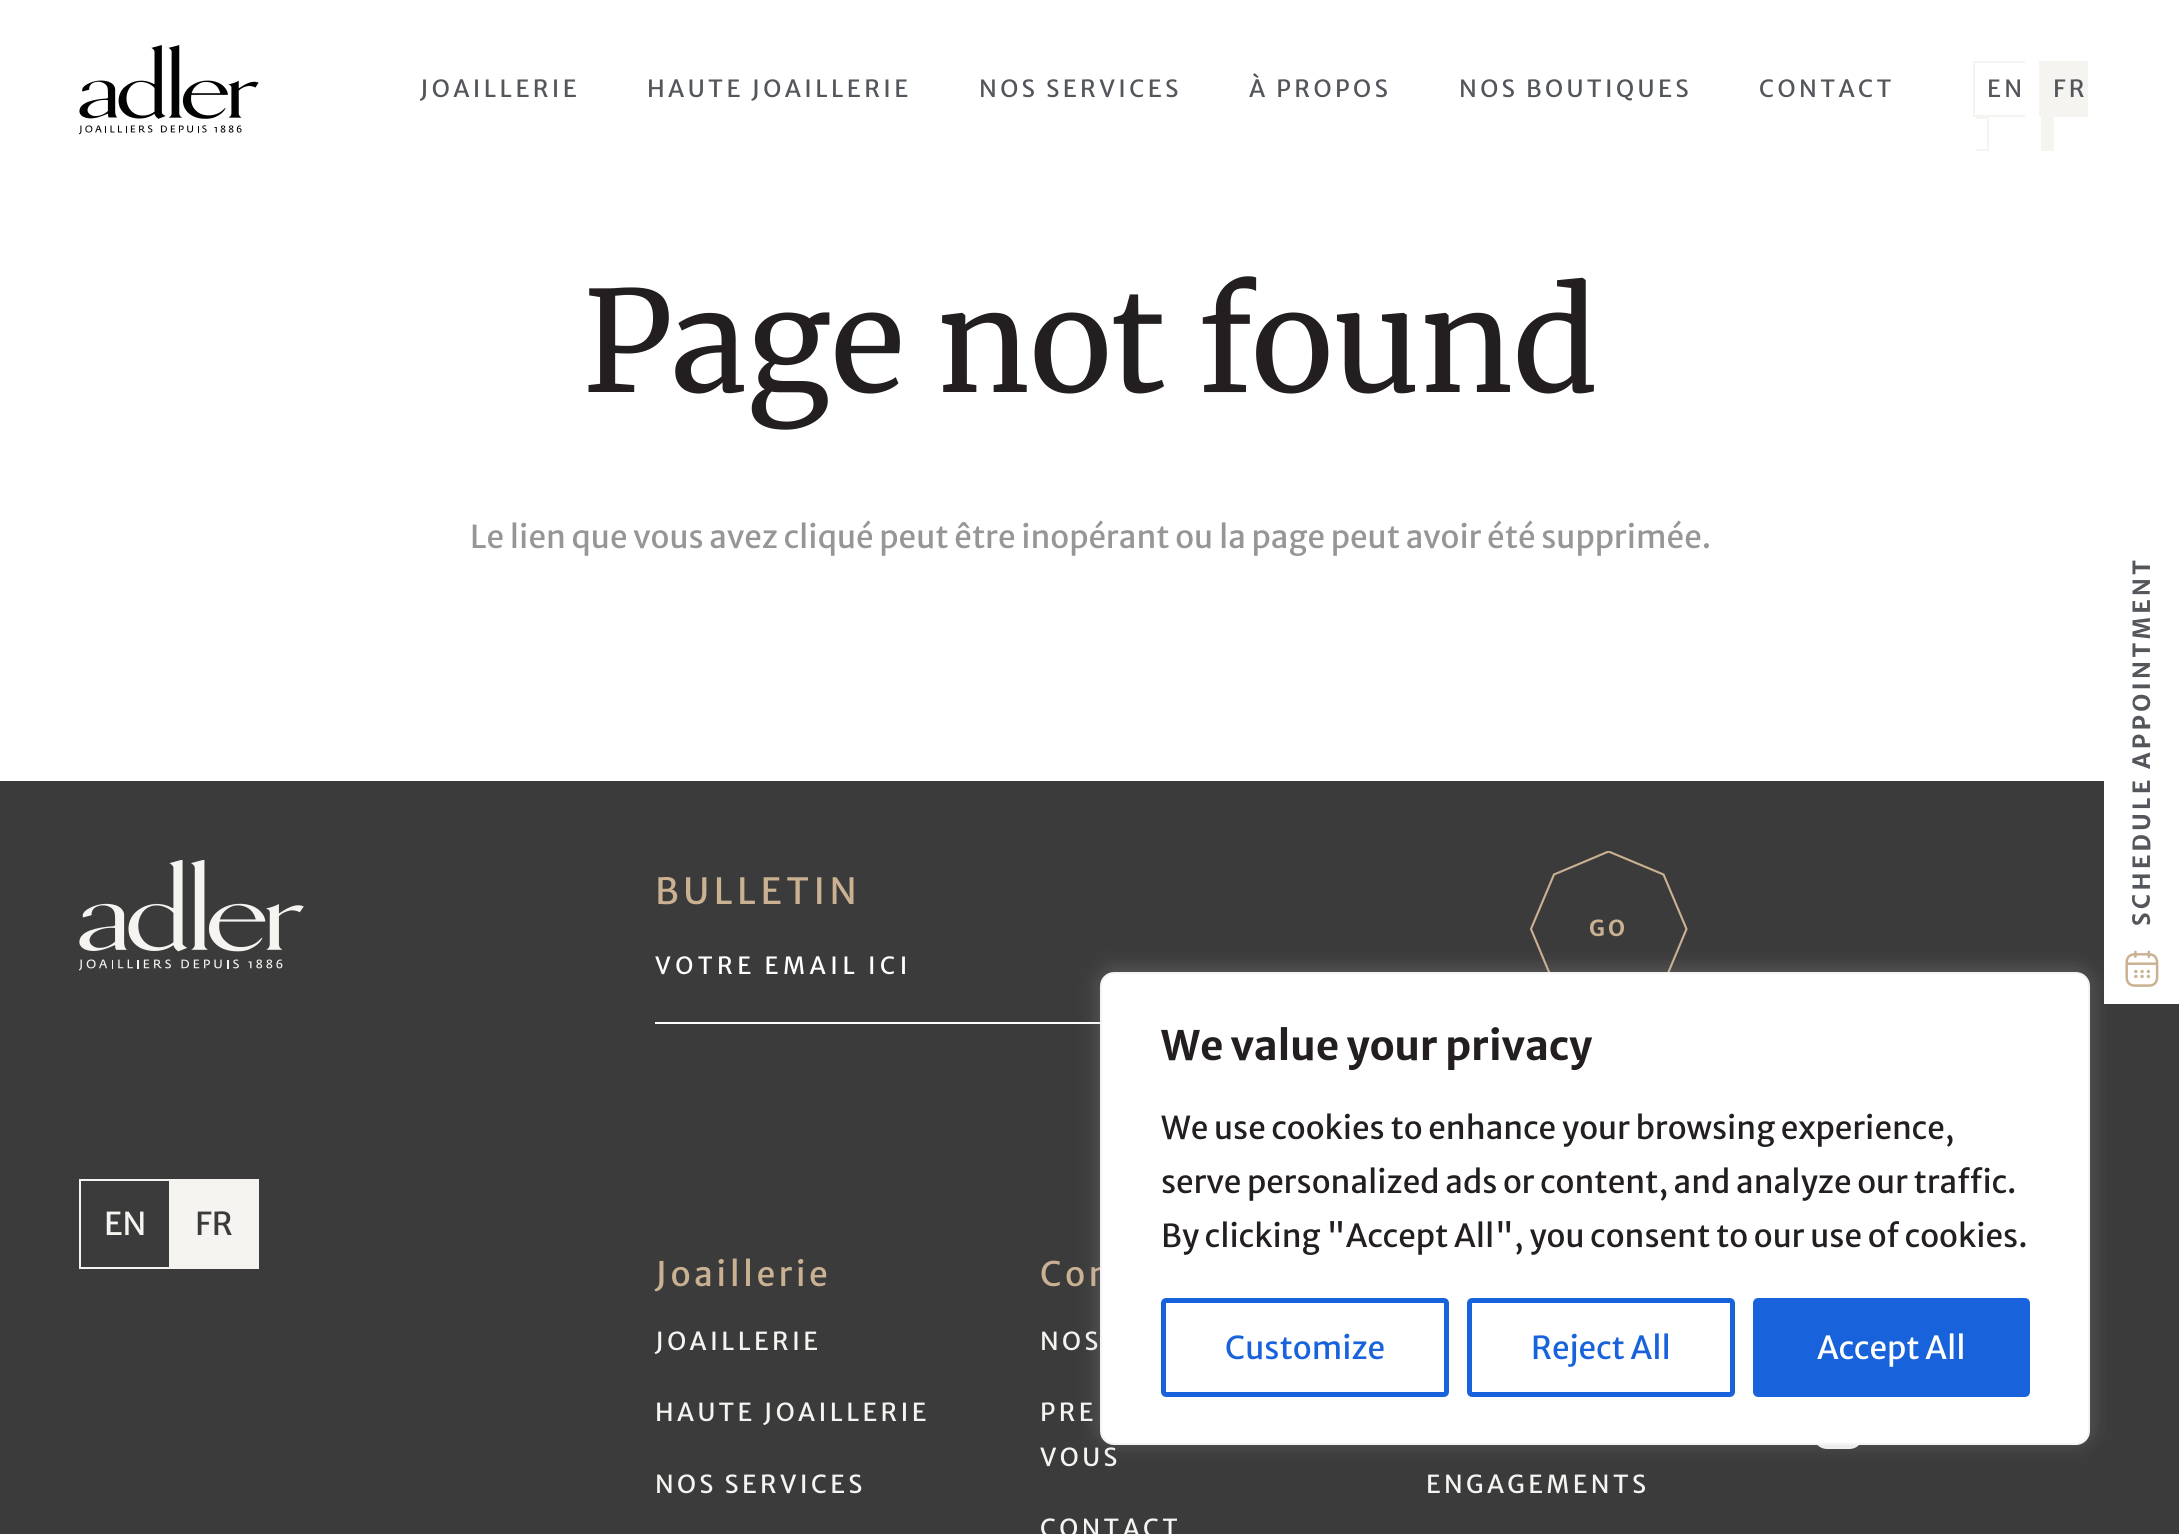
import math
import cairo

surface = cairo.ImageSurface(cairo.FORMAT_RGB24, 2179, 1534)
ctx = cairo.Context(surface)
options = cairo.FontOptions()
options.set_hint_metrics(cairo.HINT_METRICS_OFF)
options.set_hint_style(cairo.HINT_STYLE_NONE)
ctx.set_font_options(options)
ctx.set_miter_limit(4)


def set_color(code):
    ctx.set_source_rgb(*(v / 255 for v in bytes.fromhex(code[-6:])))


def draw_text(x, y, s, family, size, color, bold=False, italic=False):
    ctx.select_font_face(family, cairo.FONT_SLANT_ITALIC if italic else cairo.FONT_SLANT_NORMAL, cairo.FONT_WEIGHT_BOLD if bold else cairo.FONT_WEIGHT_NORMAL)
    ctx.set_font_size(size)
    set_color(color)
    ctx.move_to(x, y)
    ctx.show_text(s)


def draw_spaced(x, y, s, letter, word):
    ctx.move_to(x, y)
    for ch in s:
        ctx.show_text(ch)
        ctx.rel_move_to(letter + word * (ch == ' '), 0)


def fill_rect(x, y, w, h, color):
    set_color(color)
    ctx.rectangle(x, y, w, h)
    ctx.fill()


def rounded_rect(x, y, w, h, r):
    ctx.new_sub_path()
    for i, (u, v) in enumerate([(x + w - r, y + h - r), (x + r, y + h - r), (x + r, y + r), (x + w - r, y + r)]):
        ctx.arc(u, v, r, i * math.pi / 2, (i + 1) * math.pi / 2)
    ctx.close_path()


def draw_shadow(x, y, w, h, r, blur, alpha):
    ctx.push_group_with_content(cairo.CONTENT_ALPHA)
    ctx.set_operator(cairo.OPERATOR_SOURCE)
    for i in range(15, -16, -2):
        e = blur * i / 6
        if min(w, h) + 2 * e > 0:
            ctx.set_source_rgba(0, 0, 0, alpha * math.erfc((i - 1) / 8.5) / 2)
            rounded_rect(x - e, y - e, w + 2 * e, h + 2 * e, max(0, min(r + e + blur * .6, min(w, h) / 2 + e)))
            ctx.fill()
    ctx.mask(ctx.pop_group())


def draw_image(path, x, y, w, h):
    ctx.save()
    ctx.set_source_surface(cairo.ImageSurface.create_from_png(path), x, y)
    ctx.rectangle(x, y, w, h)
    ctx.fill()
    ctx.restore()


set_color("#ffffff")
ctx.paint()
draw_image("assets/img1.png", 79, 45, 180, 90)
ctx.select_font_face("Merriweather Sans")
ctx.set_font_size(23.6)
set_color("#53565a")
draw_spaced(420, 97, "JOAILLERIE", 3.4, 0)
draw_spaced(647, 97, "HAUTE JOAILLERIE", 3.4, 0)
draw_spaced(979, 97, "NOS SERVICES", 3.4, 0)
draw_spaced(1249, 97, "À PROPOS", 3.4, 0)
draw_spaced(1459, 97, "NOS BOUTIQUES", 3.4, 0)
draw_spaced(1759, 97, "CONTACT", 3.4, 0)
draw_spaced(1987, 97, "EN", 3.4, 0)
fill_rect(1973, 61, 52, 2, "#f5f4f1")
fill_rect(1973, 115, 52, 2, "#f5f4f1")
fill_rect(1973, 61, 2, 56, "#f5f4f1")
fill_rect(1976, 117, 13, 2, "#f5f4f1")
fill_rect(1987, 117, 2, 34, "#f5f4f1")
fill_rect(1976, 149, 13, 2, "#f5f4f1")
fill_rect(2039, 61, 49, 56, "#f5f4f1")
set_color("#53565a")
draw_spaced(2053, 97, "FR", 3.4, 0)
fill_rect(2041, 117, 13, 34, "#f5f4f1")
draw_text(583, 392, "Page not found", "Merriweather", 139.5, "#231f20")
draw_text(470, 548, "Le lien que vous avez cliqué peut être inopérant ou la page peut avoir été supprimée.", "Merriweather Sans", 31.5, "#969696")
fill_rect(0, 781, 2179, 753, "#3c3b3b")
draw_image("assets/img2.png", 2104, 560, 75, 444)
draw_image("assets/img3.png", 79, 860, 225, 111)
ctx.rectangle(80, 1180, 90, 88)
set_color("#f5f4f1")
ctx.stroke()
draw_text(104, 1235, "EN", "Merriweather Sans", 31.5, "#f5f4f1")
fill_rect(171, 1179, 88, 90, "#f5f4f1")
draw_text(195, 1235, "FR", "Merriweather Sans", 31.5, "#3c3b3b")
ctx.set_font_size(36)
set_color("#c9b192")
draw_spaced(655, 904, "BULLETIN", 4.5, 0)
ctx.save()
ctx.rectangle(1530, 851, 158, 157)
ctx.clip()
ctx.new_path()
ctx.move_to(1554, 984)
ctx.line_to(1608.5, 1007)
ctx.line_to(1663.5, 984)
ctx.line_to(1686.5, 929)
ctx.line_to(1663.5, 874.5)
ctx.line_to(1608.5, 851.5)
ctx.line_to(1554, 874.5)
ctx.line_to(1531, 929)
ctx.close_path()
ctx.set_line_width(2.1)
ctx.stroke()
ctx.restore()
ctx.select_font_face("Merriweather Sans", cairo.FONT_SLANT_NORMAL, cairo.FONT_WEIGHT_BOLD)
ctx.set_font_size(22)
draw_spaced(1589, 936, "GO", 3, 0)
fill_rect(655, 1022, 445, 2, "#ffffff")
ctx.select_font_face("Merriweather Sans")
ctx.set_font_size(23.6)
draw_spaced(655, 974, "VOTRE EMAIL ICI", 4.5, 0)
ctx.set_font_size(33.75)
set_color("#c9b192")
draw_spaced(655, 1286, "Joaillerie", 3.4, 0)
ctx.set_font_size(24.75)
set_color("#f5f4f1")
draw_spaced(655, 1350, "JOAILLERIE", 3.4, 0)
draw_spaced(655, 1421, "HAUTE JOAILLERIE", 3.4, 0)
draw_spaced(655, 1493, "NOS SERVICES", 3.4, 0)
ctx.set_font_size(33.75)
set_color("#c9b192")
draw_spaced(1040, 1286, "Con", 3.4, 0)
ctx.set_font_size(24.75)
set_color("#f5f4f1")
draw_spaced(1040, 1350, "NOS", 3.4, 0)
draw_spaced(1040, 1421, "PRE", 3.4, 0)
draw_spaced(1040, 1466, "VOUS", 3.4, 0)
draw_spaced(1040, 1537, "CONTACT", 3.4, 0)
draw_image("assets/img4.png", 1817, 1445, 42, 4)
draw_spaced(1426, 1493, "ENGAGEMENTS", 3.4, 0)
set_color("#acabab")
draw_shadow(1100, 970, 990, 472, 14, 11, 0.3)
set_color("#ffffff")
rounded_rect(1101, 973, 988, 471, 13)
ctx.fill_preserve()
set_color("#f4f4f4")
ctx.stroke()
draw_text(1161, 1060, "We value your privacy", "Merriweather Sans", 40.5, "#231f20", bold=True)
draw_text(1161, 1139, "We use cookies to enhance your browsing experience,", "Merriweather Sans", 31.5, "#231f20")
draw_text(1161, 1193, "serve personalized ads or content, and analyze our traffic.", "Merriweather Sans", 31.5, "#231f20")
draw_text(1161, 1247, "By clicking \"Accept All\", you consent to our use of cookies.", "Merriweather Sans", 31.5, "#231f20")
rounded_rect(1163.5, 1300.5, 283, 94, 2.5)
set_color("#1863dc")
ctx.set_line_width(5)
ctx.stroke()
draw_text(1225, 1359, "Customize", "Merriweather Sans", 31.5, "#1863dc")
rounded_rect(1469.5, 1300.5, 263, 94, 2.5)
ctx.stroke()
draw_text(1531, 1359, "Reject All", "Merriweather Sans", 31.5, "#1863dc")
rounded_rect(1755.5, 1300.5, 272, 94, 2.5)
ctx.fill_preserve()
ctx.stroke()
draw_text(1817, 1359, "Accept All", "Merriweather Sans", 31.5, "#ffffff")
surface.write_to_png("output.png")
